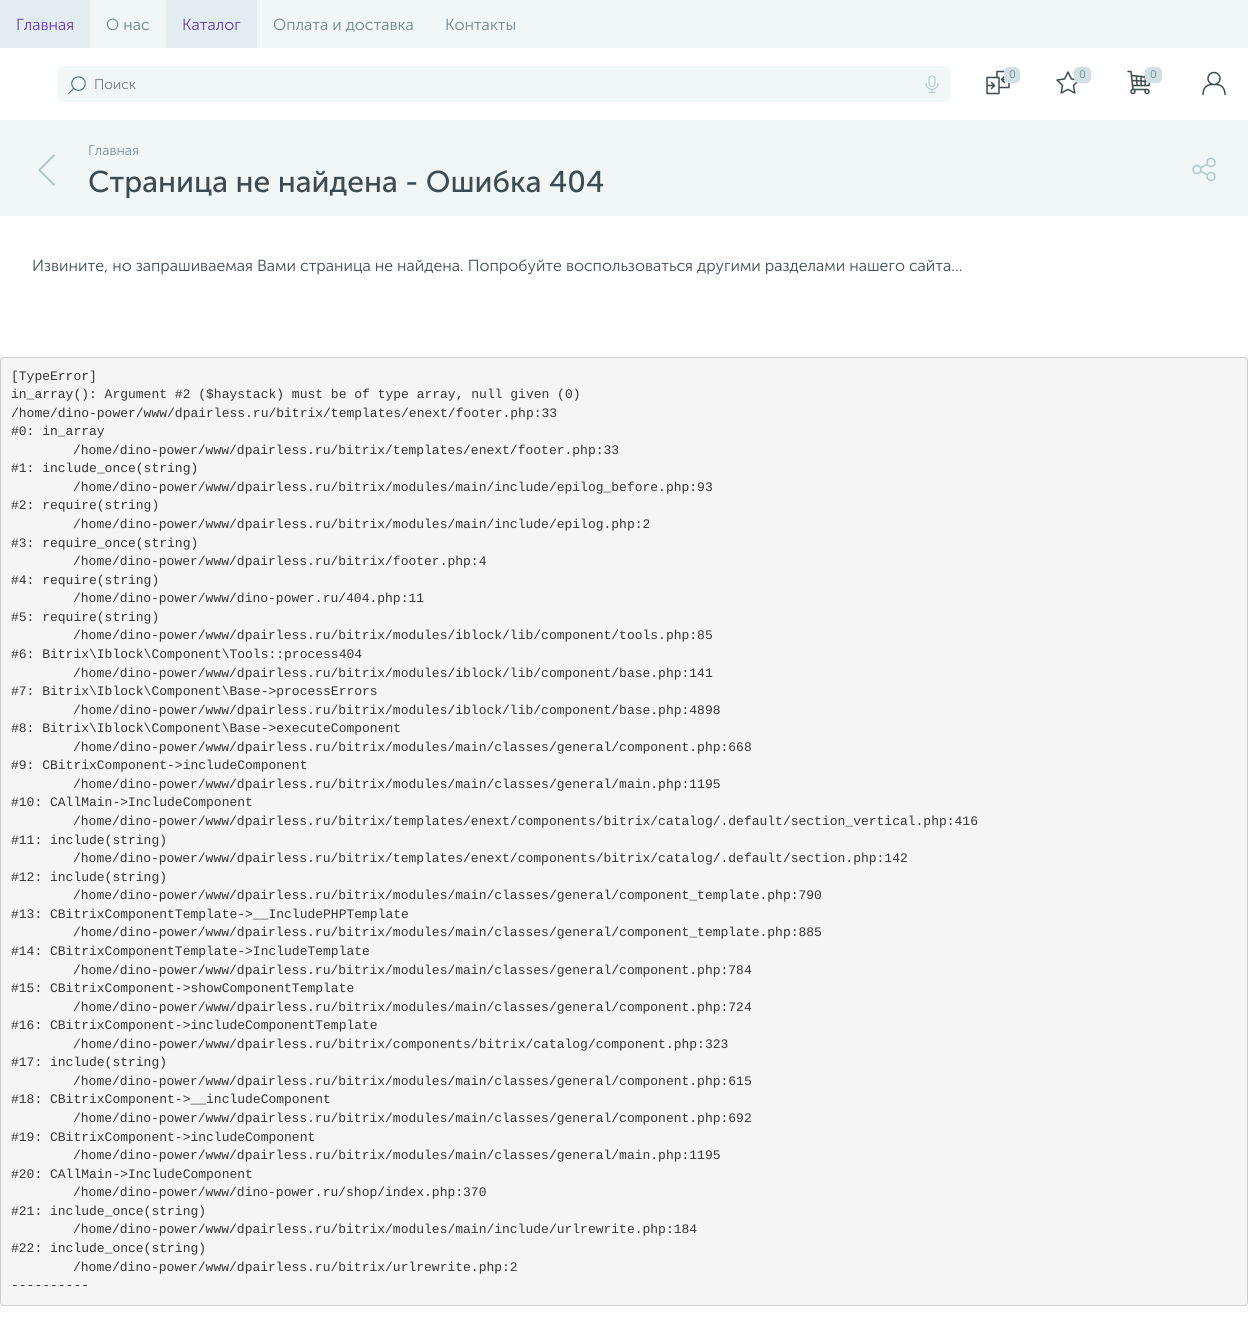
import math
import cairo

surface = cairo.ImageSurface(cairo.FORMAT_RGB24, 1248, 1321)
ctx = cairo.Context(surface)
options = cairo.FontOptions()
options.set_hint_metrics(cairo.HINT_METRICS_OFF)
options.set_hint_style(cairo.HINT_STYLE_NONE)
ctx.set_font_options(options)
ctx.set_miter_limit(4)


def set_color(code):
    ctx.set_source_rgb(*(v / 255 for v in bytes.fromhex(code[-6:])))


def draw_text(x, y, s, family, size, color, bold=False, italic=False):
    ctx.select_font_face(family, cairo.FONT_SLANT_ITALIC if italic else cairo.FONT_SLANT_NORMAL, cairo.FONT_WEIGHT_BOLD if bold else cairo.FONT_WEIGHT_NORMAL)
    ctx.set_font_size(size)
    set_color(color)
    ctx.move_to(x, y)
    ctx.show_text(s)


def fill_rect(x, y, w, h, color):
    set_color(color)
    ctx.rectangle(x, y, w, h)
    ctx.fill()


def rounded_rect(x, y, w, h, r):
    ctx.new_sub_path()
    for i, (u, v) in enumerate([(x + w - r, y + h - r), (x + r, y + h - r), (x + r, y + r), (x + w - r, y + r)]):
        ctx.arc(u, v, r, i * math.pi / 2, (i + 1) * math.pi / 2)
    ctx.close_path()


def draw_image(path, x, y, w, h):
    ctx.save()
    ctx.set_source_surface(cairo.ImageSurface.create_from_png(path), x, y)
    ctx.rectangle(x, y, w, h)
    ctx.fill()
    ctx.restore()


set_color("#ffffff")
ctx.paint()
fill_rect(90, 0, 1158, 48, "#f1f6f7")
fill_rect(0, 0, 90, 48, "#e3ecef")
draw_text(16, 30, "Главная", "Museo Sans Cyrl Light", 16, "#6639b6")
draw_text(106, 30, "О нас", "Museo Sans Cyrl Light", 16, "#6e858a")
fill_rect(166, 0, 91, 48, "#e3ecef")
draw_text(182, 30, "Каталог", "Museo Sans Cyrl Light", 16, "#6639b6")
draw_text(273, 30, "Оплата и доставка", "Museo Sans Cyrl Light", 16, "#6e858a")
draw_text(445, 30, "Контакты", "Museo Sans Cyrl Light", 16, "#6e858a")
set_color("#f1f6f7")
rounded_rect(58, 66, 892, 36, 4)
ctx.fill()
draw_image("assets/img1.png", 68, 76, 18, 18)
draw_text(94, 89, "Поиск", "Museo Sans Cyrl Light", 14, "#757575")
draw_image("assets/img2.png", 925, 75, 14, 18)
draw_image("assets/img3.png", 986, 70, 24, 25)
set_color("#d0e0e3")
rounded_rect(1004, 67, 16, 16, 5)
ctx.fill()
draw_text(1009, 78, "0", "Museo Sans Cyrl Light", 11, "#6e858a")
draw_image("assets/img4.png", 1056, 71, 22, 23)
set_color("#d0e0e3")
rounded_rect(1074, 67, 17, 16, 5)
ctx.fill()
draw_text(1079, 78, "0", "Museo Sans Cyrl Light", 11, "#6e858a")
draw_image("assets/img5.png", 1127, 70, 24, 25)
set_color("#d0e0e3")
rounded_rect(1145, 67, 17, 16, 5)
ctx.fill()
draw_text(1150, 78, "0", "Museo Sans Cyrl Light", 11, "#6e858a")
draw_image("assets/img6.png", 1202, 71, 24, 25)
fill_rect(0, 120, 1248, 96, "#f1f6f7")
draw_image("assets/img7.png", 38, 154, 17, 32)
draw_text(88, 155, "Главная", "Museo Sans Cyrl Light", 14, "#78909c")
draw_text(88, 192, "Страница не найдена - Ошибка 404", "Museo Sans Cyrl", 30, "#3d4b52")
draw_image("assets/img8.png", 1192, 157, 24, 25)
draw_text(32, 271, "Извините, но запрашиваемая Вами страница не найдена. Попробуйте воспользоваться другими разделами нашего сайта...", "Museo Sans Cyrl Light", 16, "#3d4b52")
set_color("#f5f5f5")
rounded_rect(0.5, 357.5, 1247, 948, 3.5)
ctx.fill_preserve()
set_color("#cccccc")
ctx.set_line_width(1)
ctx.stroke()
draw_text(11, 380, "[TypeError]", "Liberation Mono", 13, "#333333")
draw_text(11, 398, "in_array(): Argument #2 ($haystack) must be of type array, null given (0)", "Liberation Mono", 13, "#333333")
draw_text(11, 417, "/home/dino-power/www/dpairless.ru/bitrix/templates/enext/footer.php:33", "Liberation Mono", 13, "#333333")
draw_text(11, 435, "#0: in_array", "Liberation Mono", 13, "#333333")
draw_text(73, 454, "/home/dino-power/www/dpairless.ru/bitrix/templates/enext/footer.php:33", "Liberation Mono", 13, "#333333")
draw_text(11, 472, "#1: include_once(string)", "Liberation Mono", 13, "#333333")
draw_text(73, 491, "/home/dino-power/www/dpairless.ru/bitrix/modules/main/include/epilog_before.php:93", "Liberation Mono", 13, "#333333")
draw_text(11, 509, "#2: require(string)", "Liberation Mono", 13, "#333333")
draw_text(73, 528, "/home/dino-power/www/dpairless.ru/bitrix/modules/main/include/epilog.php:2", "Liberation Mono", 13, "#333333")
draw_text(11, 547, "#3: require_once(string)", "Liberation Mono", 13, "#333333")
draw_text(73, 565, "/home/dino-power/www/dpairless.ru/bitrix/footer.php:4", "Liberation Mono", 13, "#333333")
draw_text(11, 584, "#4: require(string)", "Liberation Mono", 13, "#333333")
draw_text(73, 602, "/home/dino-power/www/dino-power.ru/404.php:11", "Liberation Mono", 13, "#333333")
draw_text(11, 621, "#5: require(string)", "Liberation Mono", 13, "#333333")
draw_text(73, 639, "/home/dino-power/www/dpairless.ru/bitrix/modules/iblock/lib/component/tools.php:85", "Liberation Mono", 13, "#333333")
draw_text(11, 658, "#6: Bitrix\\Iblock\\Component\\Tools::process404", "Liberation Mono", 13, "#333333")
draw_text(73, 677, "/home/dino-power/www/dpairless.ru/bitrix/modules/iblock/lib/component/base.php:141", "Liberation Mono", 13, "#333333")
draw_text(11, 695, "#7: Bitrix\\Iblock\\Component\\Base->processErrors", "Liberation Mono", 13, "#333333")
draw_text(73, 714, "/home/dino-power/www/dpairless.ru/bitrix/modules/iblock/lib/component/base.php:4898", "Liberation Mono", 13, "#333333")
draw_text(11, 732, "#8: Bitrix\\Iblock\\Component\\Base->executeComponent", "Liberation Mono", 13, "#333333")
draw_text(73, 751, "/home/dino-power/www/dpairless.ru/bitrix/modules/main/classes/general/component.php:668", "Liberation Mono", 13, "#333333")
draw_text(11, 769, "#9: CBitrixComponent->includeComponent", "Liberation Mono", 13, "#333333")
draw_text(73, 788, "/home/dino-power/www/dpairless.ru/bitrix/modules/main/classes/general/main.php:1195", "Liberation Mono", 13, "#333333")
draw_text(11, 806, "#10: CAllMain->IncludeComponent", "Liberation Mono", 13, "#333333")
draw_text(73, 825, "/home/dino-power/www/dpairless.ru/bitrix/templates/enext/components/bitrix/catalog/.default/section_vertical.php:416", "Liberation Mono", 13, "#333333")
draw_text(11, 844, "#11: include(string)", "Liberation Mono", 13, "#333333")
draw_text(73, 862, "/home/dino-power/www/dpairless.ru/bitrix/templates/enext/components/bitrix/catalog/.default/section.php:142", "Liberation Mono", 13, "#333333")
draw_text(11, 881, "#12: include(string)", "Liberation Mono", 13, "#333333")
draw_text(73, 899, "/home/dino-power/www/dpairless.ru/bitrix/modules/main/classes/general/component_template.php:790", "Liberation Mono", 13, "#333333")
draw_text(11, 918, "#13: CBitrixComponentTemplate->__IncludePHPTemplate", "Liberation Mono", 13, "#333333")
draw_text(73, 936, "/home/dino-power/www/dpairless.ru/bitrix/modules/main/classes/general/component_template.php:885", "Liberation Mono", 13, "#333333")
draw_text(11, 955, "#14: CBitrixComponentTemplate->IncludeTemplate", "Liberation Mono", 13, "#333333")
draw_text(73, 974, "/home/dino-power/www/dpairless.ru/bitrix/modules/main/classes/general/component.php:784", "Liberation Mono", 13, "#333333")
draw_text(11, 992, "#15: CBitrixComponent->showComponentTemplate", "Liberation Mono", 13, "#333333")
draw_text(73, 1011, "/home/dino-power/www/dpairless.ru/bitrix/modules/main/classes/general/component.php:724", "Liberation Mono", 13, "#333333")
draw_text(11, 1029, "#16: CBitrixComponent->includeComponentTemplate", "Liberation Mono", 13, "#333333")
draw_text(73, 1048, "/home/dino-power/www/dpairless.ru/bitrix/components/bitrix/catalog/component.php:323", "Liberation Mono", 13, "#333333")
draw_text(11, 1066, "#17: include(string)", "Liberation Mono", 13, "#333333")
draw_text(73, 1085, "/home/dino-power/www/dpairless.ru/bitrix/modules/main/classes/general/component.php:615", "Liberation Mono", 13, "#333333")
draw_text(11, 1103, "#18: CBitrixComponent->__includeComponent", "Liberation Mono", 13, "#333333")
draw_text(73, 1122, "/home/dino-power/www/dpairless.ru/bitrix/modules/main/classes/general/component.php:692", "Liberation Mono", 13, "#333333")
draw_text(11, 1141, "#19: CBitrixComponent->includeComponent", "Liberation Mono", 13, "#333333")
draw_text(73, 1159, "/home/dino-power/www/dpairless.ru/bitrix/modules/main/classes/general/main.php:1195", "Liberation Mono", 13, "#333333")
draw_text(11, 1178, "#20: CAllMain->IncludeComponent", "Liberation Mono", 13, "#333333")
draw_text(73, 1196, "/home/dino-power/www/dino-power.ru/shop/index.php:370", "Liberation Mono", 13, "#333333")
draw_text(11, 1215, "#21: include_once(string)", "Liberation Mono", 13, "#333333")
draw_text(73, 1233, "/home/dino-power/www/dpairless.ru/bitrix/modules/main/include/urlrewrite.php:184", "Liberation Mono", 13, "#333333")
draw_text(11, 1252, "#22: include_once(string)", "Liberation Mono", 13, "#333333")
draw_text(73, 1271, "/home/dino-power/www/dpairless.ru/bitrix/urlrewrite.php:2", "Liberation Mono", 13, "#333333")
draw_text(11, 1289, "----------", "Liberation Mono", 13, "#333333")
surface.write_to_png("output.png")
